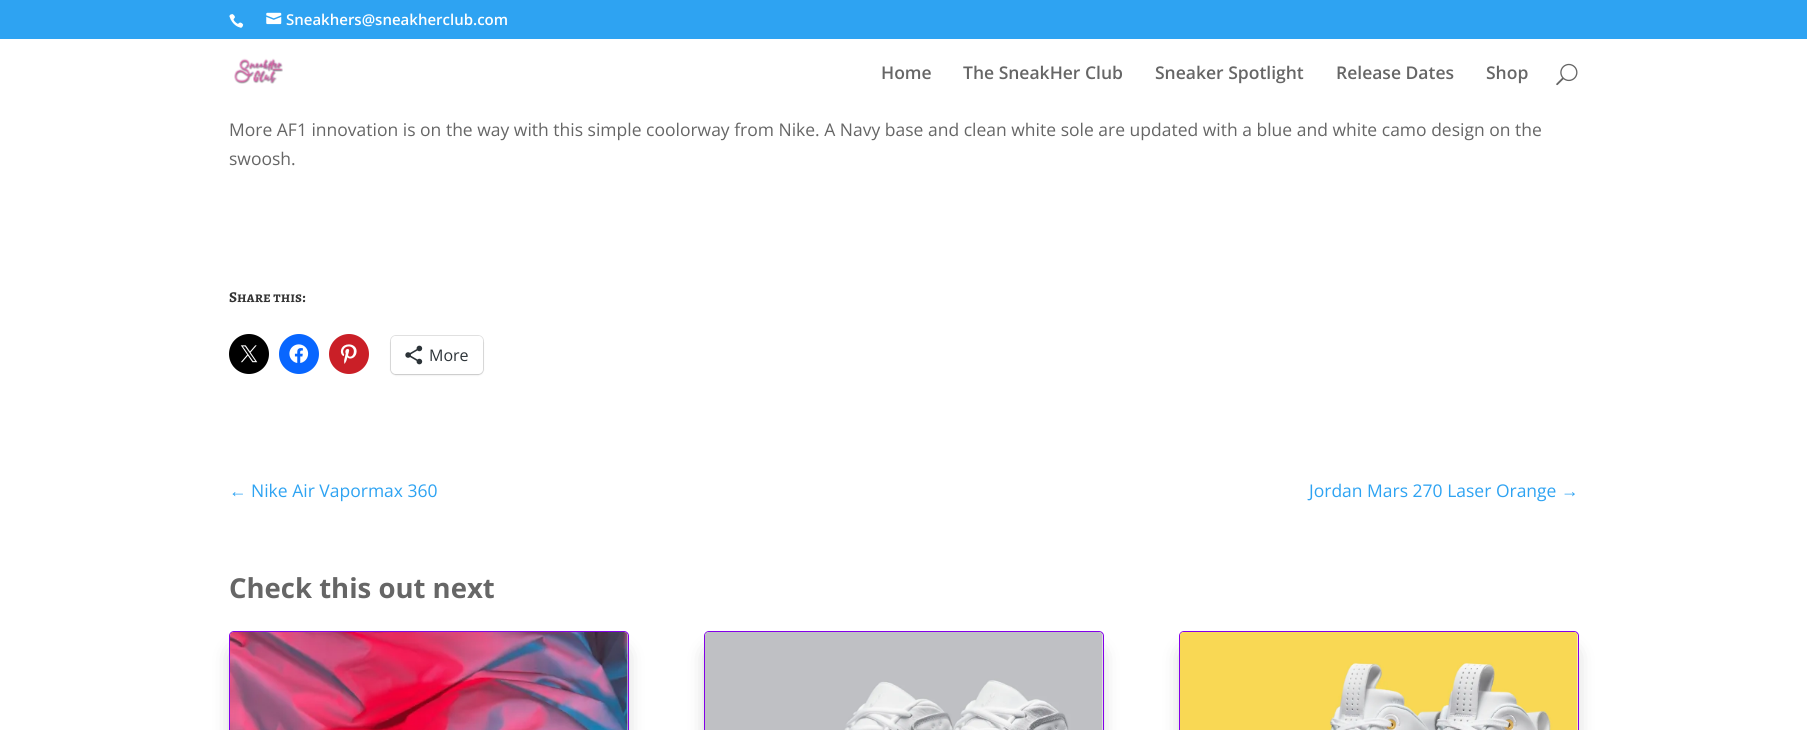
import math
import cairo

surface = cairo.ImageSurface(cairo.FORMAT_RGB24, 1807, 730)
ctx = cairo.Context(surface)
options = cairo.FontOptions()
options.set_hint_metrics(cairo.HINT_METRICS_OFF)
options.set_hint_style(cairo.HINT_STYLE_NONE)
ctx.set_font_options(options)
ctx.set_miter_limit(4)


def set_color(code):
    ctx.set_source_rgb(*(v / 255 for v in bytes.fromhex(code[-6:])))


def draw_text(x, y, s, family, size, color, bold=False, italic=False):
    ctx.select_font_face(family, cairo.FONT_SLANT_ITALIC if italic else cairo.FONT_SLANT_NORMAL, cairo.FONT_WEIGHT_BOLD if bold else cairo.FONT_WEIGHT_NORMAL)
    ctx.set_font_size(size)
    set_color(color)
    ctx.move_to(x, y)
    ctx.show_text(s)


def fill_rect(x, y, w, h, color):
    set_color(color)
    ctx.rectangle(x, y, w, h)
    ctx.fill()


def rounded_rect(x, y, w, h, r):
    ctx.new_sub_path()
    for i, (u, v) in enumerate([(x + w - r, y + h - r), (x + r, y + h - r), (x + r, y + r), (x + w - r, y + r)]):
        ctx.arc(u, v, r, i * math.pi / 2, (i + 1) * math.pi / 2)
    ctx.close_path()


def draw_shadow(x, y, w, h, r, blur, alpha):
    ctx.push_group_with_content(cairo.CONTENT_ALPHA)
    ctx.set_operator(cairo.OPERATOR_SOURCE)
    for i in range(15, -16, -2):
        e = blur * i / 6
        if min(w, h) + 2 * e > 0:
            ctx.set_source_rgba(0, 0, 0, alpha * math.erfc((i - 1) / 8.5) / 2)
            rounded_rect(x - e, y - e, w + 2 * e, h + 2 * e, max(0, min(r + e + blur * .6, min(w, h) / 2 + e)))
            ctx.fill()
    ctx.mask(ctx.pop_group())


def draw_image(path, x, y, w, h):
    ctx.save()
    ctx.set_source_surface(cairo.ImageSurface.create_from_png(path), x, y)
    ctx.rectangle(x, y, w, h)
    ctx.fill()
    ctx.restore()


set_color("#ffffff")
ctx.paint()
fill_rect(0, 0, 1807, 39, "#2ea3f2")
draw_image("assets/img1.png", 229, 14, 15, 14)
draw_image("assets/img2.png", 266, 12, 16, 13)
draw_text(286, 25, "Sneakhers@sneakherclub.com", "Open Sans SemiBold", 15, "#ffffff")
draw_image("assets/img3.png", 234, 58, 49, 26)
draw_text(881, 79, "Home", "Open Sans SemiBold", 17.5, "#666666")
draw_text(963, 79, "The SneakHer Club", "Open Sans SemiBold", 17.5, "#666666")
draw_text(1155, 79, "Sneaker Spotlight", "Open Sans SemiBold", 17.5, "#666666")
draw_text(1336, 79, "Release Dates", "Open Sans SemiBold", 17.5, "#666666")
draw_text(1486, 79, "Shop", "Open Sans SemiBold", 17.5, "#666666")
draw_image("assets/img4.png", 1556, 63, 22, 23)
draw_text(229, 136, "More AF1 innovation is on the way with this simple coolorway from Nike. A Navy base and clean white sole are updated with a blue and white camo design on the", "Open Sans", 17.5, "#666666")
draw_text(229, 165, "swoosh.", "Open Sans", 17.5, "#666666")
draw_text(229, 302, "Share this:", "Alegreya SC", 15, "#333333", bold=True)
set_color("#000000")
ctx.new_path()
ctx.arc(249, 354, 20, 0, 2 * math.pi)
ctx.fill()
draw_image("assets/img5.png", 240, 345, 18, 18)
set_color("#0866ff")
ctx.arc(299, 354, 20, 0, 2 * math.pi)
ctx.fill()
draw_image("assets/img6.png", 289, 344, 20, 19)
set_color("#ca1f27")
ctx.arc(349, 354, 20, 0, 2 * math.pi)
ctx.fill()
draw_image("assets/img7.png", 340, 344, 17, 20)
rounded_rect(390.5, 335.5, 93, 39, 5.5)
set_color("#e0e0e0")
ctx.set_line_width(1)
ctx.stroke()
set_color("#000000")
draw_shadow(391, 338, 92, 37, 5, 1, 0.12)
set_color("#ffffff")
rounded_rect(391, 336, 92, 38, 5)
ctx.fill()
draw_image("assets/img8.png", 405, 345, 18, 20)
draw_text(429, 361, "More", "Open Sans", 16, "#2c3338")
draw_text(229, 497, "←", "Liberation Sans", 17.5, "#2ea3f2")
draw_text(251, 497, "Nike Air Vapormax 360", "Open Sans", 17.5, "#2ea3f2")
draw_text(1309, 497, "Jordan Mars 270 Laser Orange", "Open Sans", 17.5, "#2ea3f2")
draw_text(1561, 497, "→", "Liberation Sans", 17.5, "#2ea3f2")
draw_text(229, 598, "Check this out next", "Open Sans", 27.5, "#666666", bold=True)
set_color("#000000")
draw_shadow(236, 654, 385, 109, 0, 11, 0.3)
set_color("#ffffff")
rounded_rect(229.5, 631.5, 399, 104, 4.5)
ctx.fill_preserve()
set_color("#8300e9")
ctx.stroke()
draw_image("assets/img9.png", 230, 632, 398, 98)
set_color("#000000")
draw_shadow(711, 654, 385, 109, 0, 11, 0.3)
set_color("#ffffff")
rounded_rect(704.5, 631.5, 399, 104, 4.5)
ctx.fill_preserve()
set_color("#8300e9")
ctx.stroke()
draw_image("assets/img10.png", 705, 632, 398, 98)
set_color("#000000")
draw_shadow(1186, 654, 385, 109, 0, 11, 0.3)
set_color("#ffffff")
rounded_rect(1179.5, 631.5, 399, 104, 4.5)
ctx.fill_preserve()
set_color("#8300e9")
ctx.stroke()
draw_image("assets/img11.png", 1180, 632, 398, 98)
surface.write_to_png("output.png")
